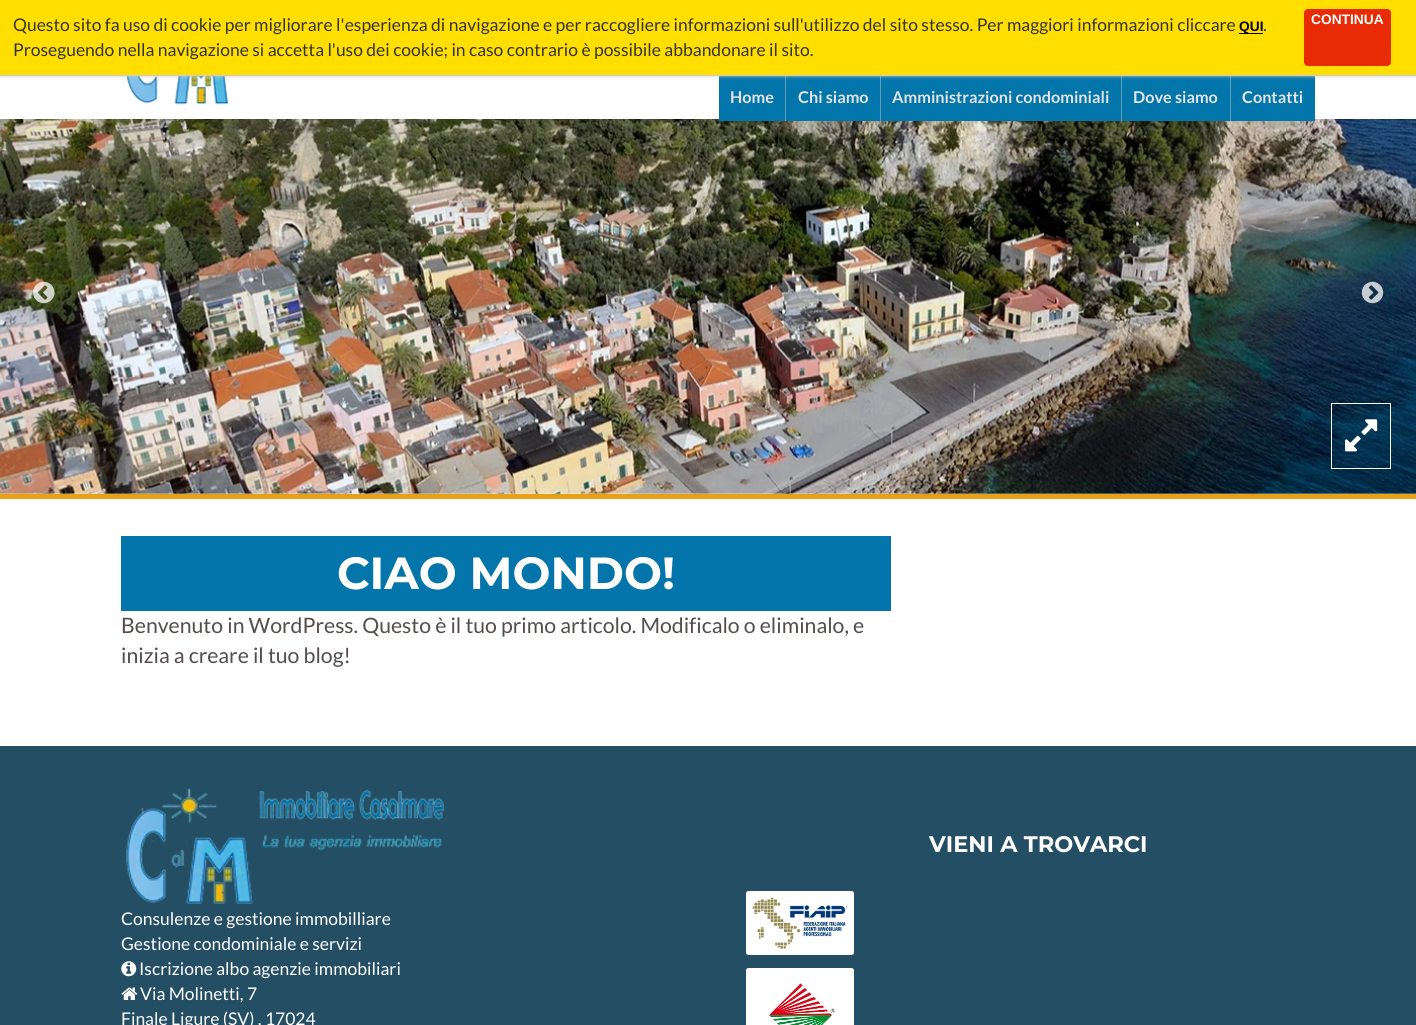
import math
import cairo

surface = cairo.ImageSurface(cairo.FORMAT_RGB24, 1416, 1025)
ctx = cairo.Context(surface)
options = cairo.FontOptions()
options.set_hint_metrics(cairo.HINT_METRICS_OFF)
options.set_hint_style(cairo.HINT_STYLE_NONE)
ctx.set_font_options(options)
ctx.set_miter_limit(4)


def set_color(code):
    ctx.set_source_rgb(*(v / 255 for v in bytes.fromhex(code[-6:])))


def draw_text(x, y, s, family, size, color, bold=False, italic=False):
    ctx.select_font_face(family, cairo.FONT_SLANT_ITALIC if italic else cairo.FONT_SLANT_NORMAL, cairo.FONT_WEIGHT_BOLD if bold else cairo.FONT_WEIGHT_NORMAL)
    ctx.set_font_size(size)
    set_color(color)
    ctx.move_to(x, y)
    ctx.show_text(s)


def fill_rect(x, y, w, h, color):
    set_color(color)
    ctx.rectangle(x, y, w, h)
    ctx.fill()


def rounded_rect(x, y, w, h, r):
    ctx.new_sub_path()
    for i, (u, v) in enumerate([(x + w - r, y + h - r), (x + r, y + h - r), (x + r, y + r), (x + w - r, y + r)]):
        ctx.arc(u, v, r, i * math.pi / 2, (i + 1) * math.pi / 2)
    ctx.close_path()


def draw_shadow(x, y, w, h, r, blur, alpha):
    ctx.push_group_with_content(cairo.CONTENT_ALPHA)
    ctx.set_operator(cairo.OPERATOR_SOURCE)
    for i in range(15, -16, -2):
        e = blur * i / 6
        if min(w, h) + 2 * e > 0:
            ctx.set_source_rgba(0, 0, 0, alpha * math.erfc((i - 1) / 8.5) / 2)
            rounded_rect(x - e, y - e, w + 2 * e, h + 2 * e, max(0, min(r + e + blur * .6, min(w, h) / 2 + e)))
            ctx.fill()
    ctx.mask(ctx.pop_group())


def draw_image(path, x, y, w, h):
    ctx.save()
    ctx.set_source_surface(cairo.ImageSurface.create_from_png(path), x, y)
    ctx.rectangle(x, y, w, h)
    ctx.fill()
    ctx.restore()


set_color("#ffffff")
ctx.paint()
draw_image("assets/img1.png", 126, 76, 103, 29)
draw_image("assets/img2.png", 0, 119, 1416, 375)
fill_rect(719, 76, 596, 45, "#0275aa")
fill_rect(785, 74, 1, 47, "#5f9fbb")
fill_rect(880, 74, 1, 47, "#5f9fbb")
fill_rect(1121, 74, 1, 47, "#5f9fbb")
fill_rect(1230, 74, 1, 47, "#5f9fbb")
set_color("#cccccc")
draw_shadow(0, 0, 1416, 76, 0, 2, 1)
fill_rect(0, 0, 1416, 75, "#ffde00")
fill_rect(0, 75, 1416, 1, "#cccccc")
draw_text(13, 31, "Questo sito fa uso di cookie per migliorare l'esperienza di navigazione e per raccogliere informazioni sull'utilizzo del sito stesso. Per maggiori informazioni cliccare", "Lato", 17.5, "#333333")
fill_rect(1239, 33, 24, 1, "#000000")
draw_text(1239, 31, "QUI", "Liberation Sans", 13.75, "#000000", bold=True)
draw_text(1263, 31, ".", "Lato", 17.5, "#333333")
draw_text(13, 56, "Proseguendo nella navigazione si accetta l'uso dei cookie; in caso contrario è possibile abbandonare il sito.", "Lato", 17.5, "#333333")
set_color("#e82b05")
rounded_rect(1304, 9, 87, 57, 4)
ctx.fill()
draw_text(1311, 24, "CONTINUA", "Liberation Sans", 13.75, "#ffffff", bold=True)
draw_text(730, 103, "Home", "Lato", 16.25, "#e4e4e4", bold=True)
draw_text(798, 103, "Chi siamo", "Lato", 16.25, "#e4e4e4", bold=True)
draw_text(892, 103, "Amministrazioni condominiali", "Lato", 16.25, "#e4e4e4", bold=True)
draw_text(1133, 103, "Dove siamo", "Lato", 16.25, "#e4e4e4", bold=True)
draw_text(1242, 103, "Contatti", "Lato", 16.25, "#e4e4e4", bold=True)
fill_rect(0, 494, 1416, 5, "#e6a116")
ctx.rectangle(1331.5, 403.5, 59, 65)
set_color("#ffffff")
ctx.set_line_width(1)
ctx.stroke()
draw_image("assets/img3.png", 1345, 419, 33, 33)
draw_image("assets/img4.png", 33, 281, 22, 23)
draw_image("assets/img5.png", 1361, 281, 23, 23)
fill_rect(121, 536, 770, 75, "#0375aa")
draw_text(337, 589, "CIAO MONDO!", "Montserrat", 45, "#ffffff", bold=True)
draw_text(121, 633, "Benvenuto in WordPress. Questo è il tuo primo articolo. Modificalo o eliminalo, e", "Lato", 21.25, "#564c4c")
draw_text(121, 663, "inizia a creare il tuo blog!", "Lato", 21.25, "#564c4c")
fill_rect(0, 746, 1416, 279, "#234e64")
draw_text(929, 852, "VIENI A TROVARCI", "Montserrat", 22.5, "#ffffff", bold=True)
draw_image("assets/img6.png", 126, 788, 319, 116)
draw_text(121, 925, "Consulenze e gestione immobilliare", "Lato", 17.5, "#ffffff")
draw_text(121, 950, "Gestione condominiale e servizi", "Lato", 17.5, "#ffffff")
draw_image("assets/img7.png", 121, 961, 16, 16)
draw_text(139, 975, "Iscrizione albo agenzie immobiliari", "Lato", 17.5, "#ffffff")
draw_image("assets/img8.png", 121, 987, 17, 13)
draw_text(140, 1000, "Via Molinetti, 7", "Lato", 17.5, "#ffffff")
draw_text(121, 1025, "Finale Ligure (SV) , 17024", "Lato", 17.5, "#ffffff")
rounded_rect(746, 891, 108, 64, 2.5)
ctx.fill()
draw_image("assets/img9.png", 752, 897, 96, 52)
rounded_rect(746, 968, 108, 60, 2.5)
ctx.fill()
draw_image("assets/img10.png", 769, 982, 67, 43)
surface.write_to_png("output.png")
